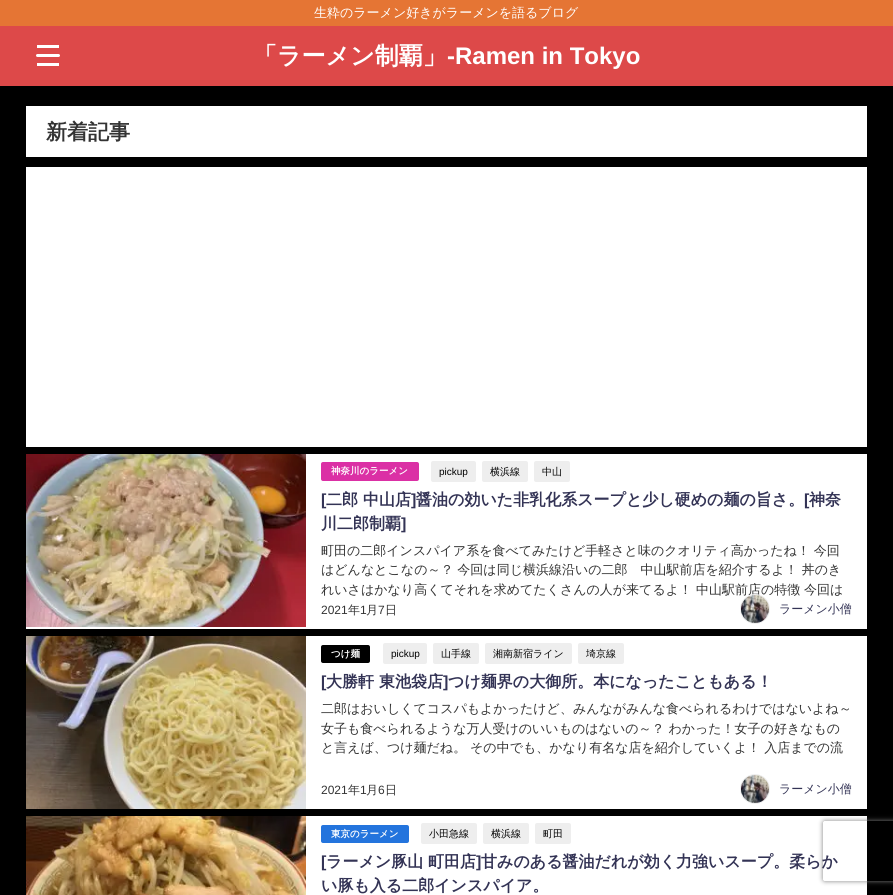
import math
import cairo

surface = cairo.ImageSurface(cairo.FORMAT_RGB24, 893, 895)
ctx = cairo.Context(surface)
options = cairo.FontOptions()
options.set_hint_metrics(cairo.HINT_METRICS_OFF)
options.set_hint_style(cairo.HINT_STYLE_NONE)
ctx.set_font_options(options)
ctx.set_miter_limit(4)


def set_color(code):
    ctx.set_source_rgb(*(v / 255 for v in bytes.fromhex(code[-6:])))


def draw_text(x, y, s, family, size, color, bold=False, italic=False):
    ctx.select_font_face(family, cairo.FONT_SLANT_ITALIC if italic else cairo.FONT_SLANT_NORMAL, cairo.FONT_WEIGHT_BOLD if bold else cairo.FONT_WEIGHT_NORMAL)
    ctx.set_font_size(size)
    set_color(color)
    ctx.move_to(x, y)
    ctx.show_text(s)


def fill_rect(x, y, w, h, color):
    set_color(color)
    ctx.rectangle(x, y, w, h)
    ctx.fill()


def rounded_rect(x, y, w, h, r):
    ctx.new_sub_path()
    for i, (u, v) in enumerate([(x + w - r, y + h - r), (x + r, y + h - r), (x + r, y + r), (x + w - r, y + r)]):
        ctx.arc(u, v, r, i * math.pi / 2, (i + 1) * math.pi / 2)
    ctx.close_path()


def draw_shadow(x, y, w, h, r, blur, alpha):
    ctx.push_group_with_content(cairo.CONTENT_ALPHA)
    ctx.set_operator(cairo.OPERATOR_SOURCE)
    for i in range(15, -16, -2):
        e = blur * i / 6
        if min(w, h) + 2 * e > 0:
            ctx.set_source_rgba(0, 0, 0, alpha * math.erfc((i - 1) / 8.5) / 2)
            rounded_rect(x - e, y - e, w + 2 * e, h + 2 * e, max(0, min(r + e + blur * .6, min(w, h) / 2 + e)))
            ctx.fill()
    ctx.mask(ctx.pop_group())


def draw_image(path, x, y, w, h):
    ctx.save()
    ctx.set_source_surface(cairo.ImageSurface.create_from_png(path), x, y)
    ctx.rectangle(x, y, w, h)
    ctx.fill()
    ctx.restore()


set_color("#000000")
ctx.paint()
fill_rect(0, 26, 893, 60, "#dd4949")
fill_rect(0, 0, 893, 26, "#e57534")
draw_text(314, 17, "生粋のラーメン好きがラーメンを語るブログ", "WenQuanYi Zen Hei Medium", 13, "#ffffff")
fill_rect(37, 45, 22, 3, "#ffffff")
rounded_rect(36, 54, 24, 3, 1.5)
ctx.fill()
fill_rect(37, 63, 22, 3, "#ffffff")
draw_text(253, 64, "「ラーメン制覇」", "WenQuanYi Zen Hei", 24, "#ffffff", bold=True)
draw_text(447, 64, "-Ramen in Tokyo", "Liberation Sans", 24, "#ffffff", bold=True)
fill_rect(26, 106, 841, 51, "#ffffff")
draw_text(46, 139, "新着記事", "WenQuanYi Zen Hei", 21, "#333333", bold=True)
fill_rect(26, 167, 841, 280, "#ffffff")
fill_rect(26, 454, 841, 175, "#ffffff")
draw_image("assets/img1.png", 26, 454, 280, 173)
set_color("#db30a5")
rounded_rect(321, 462, 98, 19, 2)
ctx.fill()
draw_text(331, 474, "神奈川のラーメン", "WenQuanYi Zen Hei", 9.5, "#ffffff", bold=True)
set_color("#eeeeee")
rounded_rect(431, 461, 45, 21, 2)
ctx.fill()
draw_text(439, 475, "pickup", "Liberation Sans", 10, "#000000")
set_color("#eeeeee")
rounded_rect(482, 461, 46, 21, 2)
ctx.fill()
draw_text(490, 475, "横浜線", "WenQuanYi Zen Hei Medium", 10, "#000000")
set_color("#eeeeee")
rounded_rect(534, 461, 36, 21, 2)
ctx.fill()
draw_text(542, 475, "中山", "WenQuanYi Zen Hei Medium", 10, "#000000")
draw_text(321, 505, "[", "Liberation Sans", 16, "#333355", bold=True)
draw_text(326, 505, "二郎", "WenQuanYi Zen Hei", 16, "#333355", bold=True)
draw_text(363, 505, "中山店", "WenQuanYi Zen Hei", 16, "#333355", bold=True)
draw_text(411, 505, "]", "Liberation Sans", 16, "#333355", bold=True)
draw_text(416, 505, "醤油の効いた非乳化系スープと少し硬めの麺の旨さ。", "WenQuanYi Zen Hei", 16, "#333355", bold=True)
draw_text(804, 505, "[", "Liberation Sans", 16, "#333355", bold=True)
draw_text(809, 505, "神奈", "WenQuanYi Zen Hei", 16, "#333355", bold=True)
draw_text(321, 529, "川二郎制覇", "WenQuanYi Zen Hei", 16, "#333355", bold=True)
draw_text(401, 529, "]", "Liberation Sans", 16, "#333355", bold=True)
draw_text(321, 555, "町田の二郎インスパイア系を食べてみたけど手軽さと味のクオリティ高かったね！ 今回", "WenQuanYi Zen Hei Medium", 13, "#333333")
draw_text(321, 574, "はどんなとこなの～？ 今回は同じ横浜線沿いの二郎　中山駅前店を紹介するよ！ 丼のき", "WenQuanYi Zen Hei Medium", 13, "#333333")
draw_text(321, 594, "れいさはかなり高くてそれを求めてたくさんの人が来てるよ！ 中山駅前店の特徴 今回は", "WenQuanYi Zen Hei Medium", 13, "#333333")
draw_text(321, 614, "2021", "Liberation Sans", 12, "#333333")
draw_text(348, 614, "年", "WenQuanYi Zen Hei Medium", 12, "#333333")
draw_text(360, 614, "1", "Liberation Sans", 12, "#333333")
draw_text(366, 614, "月", "WenQuanYi Zen Hei Medium", 12, "#333333")
draw_text(378, 614, "7", "Liberation Sans", 12, "#333333")
draw_text(385, 614, "日", "WenQuanYi Zen Hei Medium", 12, "#333333")
ctx.new_path()
ctx.arc(755, 609, 14.5, 0, 2 * math.pi)
set_color("#eeeeee")
ctx.set_line_width(1)
ctx.stroke()
draw_image("assets/img2.png", 741, 595, 28, 28)
draw_text(779, 613, "ラーメン小僧", "WenQuanYi Zen Hei Medium", 12, "#333355")
fill_rect(306, 636, 561, 173, "#ffffff")
draw_image("assets/img3.png", 26, 636, 280, 173)
set_color("#000000")
rounded_rect(321, 645, 49, 18, 2)
ctx.fill()
draw_text(331, 657, "つけ麺", "WenQuanYi Zen Hei", 9.5, "#ffffff", bold=True)
set_color("#eeeeee")
rounded_rect(383, 643, 44, 21, 2)
ctx.fill()
draw_text(391, 657, "pickup", "Liberation Sans", 10, "#000000")
set_color("#eeeeee")
rounded_rect(433, 643, 46, 21, 2)
ctx.fill()
draw_text(441, 657, "山手線", "WenQuanYi Zen Hei Medium", 10, "#000000")
set_color("#eeeeee")
rounded_rect(485, 643, 87, 21, 2)
ctx.fill()
draw_text(493, 657, "湘南新宿ライン", "WenQuanYi Zen Hei Medium", 10, "#000000")
set_color("#eeeeee")
rounded_rect(578, 643, 46, 21, 2)
ctx.fill()
draw_text(586, 657, "埼京線", "WenQuanYi Zen Hei Medium", 10, "#000000")
draw_text(321, 687, "[", "Liberation Sans", 16, "#333355", bold=True)
draw_text(326, 687, "大勝軒", "WenQuanYi Zen Hei", 16, "#333355", bold=True)
draw_text(379, 687, "東池袋店", "WenQuanYi Zen Hei", 16, "#333355", bold=True)
draw_text(443, 687, "]", "Liberation Sans", 16, "#333355", bold=True)
draw_text(448, 687, "つけ麺界の大御所。本になったこともある！", "WenQuanYi Zen Hei", 16, "#333355", bold=True)
draw_text(321, 713, "二郎はおいしくてコスパもよかったけど、みんながみんな食べられるわけではないよね～", "WenQuanYi Zen Hei Medium", 13, "#333333")
draw_text(321, 733, "女子も食べられるような万人受けのいいものはないの～？ わかった！女子の好きなもの", "WenQuanYi Zen Hei Medium", 13, "#333333")
draw_text(321, 752, "と言えば、つけ麺だね。 その中でも、かなり有名な店を紹介していくよ！ 入店までの流", "WenQuanYi Zen Hei Medium", 13, "#333333")
draw_text(321, 794, "2021", "Liberation Sans", 12, "#333333")
draw_text(348, 794, "年", "WenQuanYi Zen Hei Medium", 12, "#333333")
draw_text(360, 794, "1", "Liberation Sans", 12, "#333333")
draw_text(366, 794, "月", "WenQuanYi Zen Hei Medium", 12, "#333333")
draw_text(378, 794, "6", "Liberation Sans", 12, "#333333")
draw_text(385, 794, "日", "WenQuanYi Zen Hei Medium", 12, "#333333")
ctx.new_path()
ctx.arc(755, 789, 14.5, 0, 2 * math.pi)
set_color("#eeeeee")
ctx.stroke()
draw_image("assets/img4.png", 741, 775, 28, 28)
draw_text(779, 793, "ラーメン小僧", "WenQuanYi Zen Hei Medium", 12, "#333355")
fill_rect(306, 816, 561, 79, "#ffffff")
draw_image("assets/img5.png", 26, 816, 280, 79)
set_color("#2374dd")
rounded_rect(321, 825, 88, 18, 2)
ctx.fill()
draw_text(331, 837, "東京のラーメン", "WenQuanYi Zen Hei", 9.5, "#ffffff", bold=True)
set_color("#eeeeee")
rounded_rect(421, 823, 56, 21, 2)
ctx.fill()
draw_text(429, 837, "小田急線", "WenQuanYi Zen Hei Medium", 10, "#000000")
set_color("#eeeeee")
rounded_rect(483, 823, 46, 21, 2)
ctx.fill()
draw_text(491, 837, "横浜線", "WenQuanYi Zen Hei Medium", 10, "#000000")
set_color("#eeeeee")
rounded_rect(535, 823, 36, 21, 2)
ctx.fill()
draw_text(543, 837, "町田", "WenQuanYi Zen Hei Medium", 10, "#000000")
draw_text(321, 867, "[", "Liberation Sans", 16, "#333355", bold=True)
draw_text(326, 867, "ラーメン豚山", "WenQuanYi Zen Hei", 16, "#333355", bold=True)
draw_text(428, 867, "町田店", "WenQuanYi Zen Hei", 16, "#333355", bold=True)
draw_text(476, 867, "]", "Liberation Sans", 16, "#333355", bold=True)
draw_text(481, 867, "甘みのある醤油だれが効く力強いスープ。柔らか", "WenQuanYi Zen Hei", 16, "#333355", bold=True)
draw_text(321, 891, "い豚も入る二郎インスパイア。", "WenQuanYi Zen Hei", 16, "#333355", bold=True)
ctx.save()
ctx.set_fill_rule(cairo.FILL_RULE_EVEN_ODD)
ctx.new_path()
ctx.move_to(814, 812)
ctx.line_to(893, 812)
ctx.line_to(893, 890)
ctx.line_to(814, 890)
ctx.close_path()
ctx.move_to(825, 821)
ctx.line_to(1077, 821)
ctx.curve_to(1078, 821, 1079, 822, 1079, 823)
ctx.line_to(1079, 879)
ctx.curve_to(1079, 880, 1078, 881, 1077, 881)
ctx.line_to(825, 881)
ctx.curve_to(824, 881, 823, 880, 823, 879)
ctx.line_to(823, 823)
ctx.curve_to(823, 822, 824, 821, 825, 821)
ctx.close_path()
ctx.clip()
set_color("#808080")
draw_shadow(823, 821, 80, 60, 2, 2.5, 1)
ctx.restore()
surface.write_to_png("output.png")
